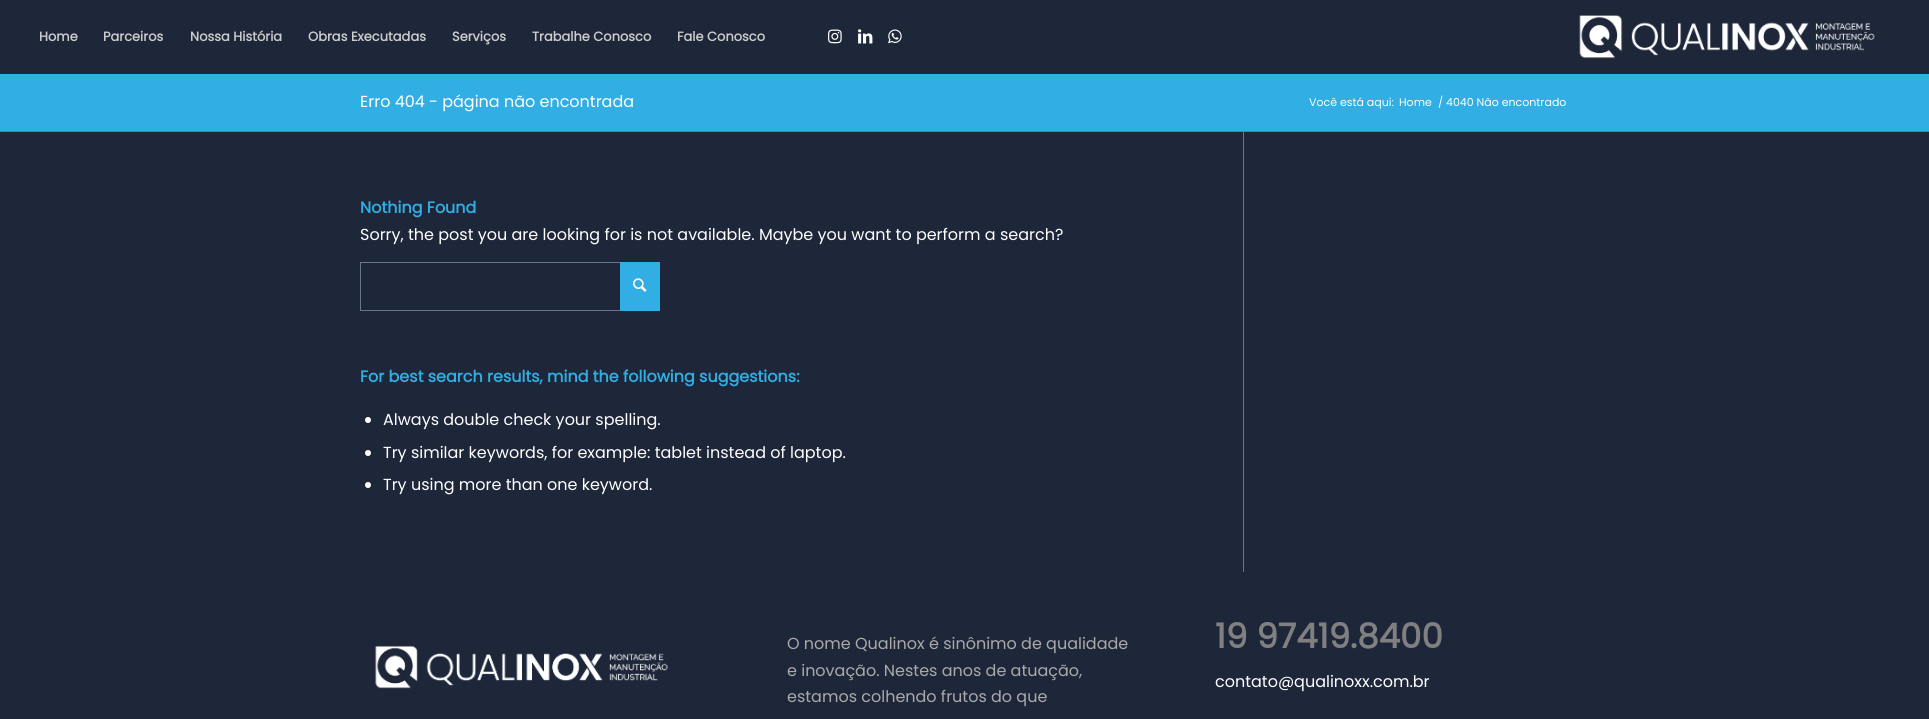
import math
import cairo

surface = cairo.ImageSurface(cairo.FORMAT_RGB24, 1929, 719)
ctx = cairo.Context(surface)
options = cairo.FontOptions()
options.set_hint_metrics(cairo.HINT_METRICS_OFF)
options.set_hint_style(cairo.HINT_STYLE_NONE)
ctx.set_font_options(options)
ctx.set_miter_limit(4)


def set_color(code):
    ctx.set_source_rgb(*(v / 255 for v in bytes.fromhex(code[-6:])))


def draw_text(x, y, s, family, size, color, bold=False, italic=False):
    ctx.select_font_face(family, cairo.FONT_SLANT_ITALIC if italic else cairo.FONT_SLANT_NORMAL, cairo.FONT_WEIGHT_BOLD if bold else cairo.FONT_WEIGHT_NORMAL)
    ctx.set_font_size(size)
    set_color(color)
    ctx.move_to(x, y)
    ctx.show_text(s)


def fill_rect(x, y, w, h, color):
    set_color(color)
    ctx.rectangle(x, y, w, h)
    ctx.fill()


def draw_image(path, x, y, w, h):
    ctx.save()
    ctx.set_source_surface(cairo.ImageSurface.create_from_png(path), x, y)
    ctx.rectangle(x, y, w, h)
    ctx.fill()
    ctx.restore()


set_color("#1e273a")
ctx.paint()
draw_text(39, 41, "Home", "Poppins", 13, "#cccccc", bold=True)
draw_text(103, 41, "Parceiros", "Poppins", 13, "#cccccc", bold=True)
draw_text(190, 41, "Nossa História", "Poppins", 13, "#cccccc", bold=True)
draw_text(308, 41, "Obras Executadas", "Poppins", 13, "#cccccc", bold=True)
draw_text(452, 41, "Serviços", "Poppins", 13, "#cccccc", bold=True)
draw_text(532, 41, "Trabalhe Conosco", "Poppins", 13, "#cccccc", bold=True)
draw_text(677, 41, "Fale Conosco", "Poppins", 13, "#cccccc", bold=True)
draw_image("assets/img1.png", 828, 29, 14, 15)
draw_image("assets/img2.png", 858, 29, 15, 15)
draw_image("assets/img3.png", 888, 29, 14, 15)
draw_image("assets/img4.png", 1579, 15, 296, 44)
fill_rect(0, 74, 1929, 57, "#31aee3")
draw_text(360, 107, "Erro 404 - página não encontrada", "Poppins", 16, "#ffffff")
draw_text(1309, 106, "Você está aqui:", "Poppins", 11, "#ffffff")
draw_text(1399, 106, "Home", "Poppins", 11, "#ffffff")
draw_text(1438, 106, "/", "Poppins", 11, "#ffffff")
draw_text(1446, 106, "4040 Não encontrado", "Poppins", 11, "#ffffff")
fill_rect(0, 131, 1929, 1, "#6a768f")
fill_rect(1243, 132, 1, 440, "#6a768f")
draw_text(360, 213, "Nothing Found", "Poppins", 16, "#31aee3", bold=True)
draw_text(360, 240, "Sorry, the post you are looking for is not available. Maybe you want to perform a search?", "Poppins", 16, "#ffffff")
ctx.rectangle(360.5, 262.5, 299, 48)
set_color("#6a768f")
ctx.set_line_width(1)
ctx.stroke()
fill_rect(620, 262, 40, 49, "#31aee3")
draw_image("assets/img5.png", 633, 278, 14, 14)
draw_text(360, 382, "For best search results, mind the following suggestions:", "Poppins", 16, "#31aee3", bold=True)
set_color("#ffffff")
ctx.new_path()
ctx.arc(368, 420, 3, 0, 2 * math.pi)
ctx.fill()
draw_text(383, 425, "Always double check your spelling.", "Poppins", 16, "#ffffff")
ctx.new_path()
ctx.arc(368, 453, 3, 0, 2 * math.pi)
ctx.fill()
draw_text(383, 458, "Try similar keywords, for example: tablet instead of laptop.", "Poppins", 16, "#ffffff")
ctx.new_path()
ctx.arc(368, 485, 3, 0, 2 * math.pi)
ctx.fill()
draw_text(383, 490, "Try using more than one keyword.", "Poppins", 16, "#ffffff")
draw_image("assets/img6.png", 375, 645, 293, 44)
draw_text(787, 649, "O nome Qualinox é sinônimo de qualidade", "Poppins", 16, "#aaaaaa")
draw_text(787, 676, "e inovação. Nestes anos de atuação,", "Poppins", 16, "#aaaaaa")
draw_text(787, 702, "estamos colhendo frutos do que", "Poppins", 16, "#aaaaaa")
draw_text(1215, 648, "19 97419.8400", "Poppins", 34, "#808080", bold=True)
draw_text(1215, 687, "contato@qualinoxx.com.br", "Poppins", 16, "#ffffff")
surface.write_to_png("output.png")
